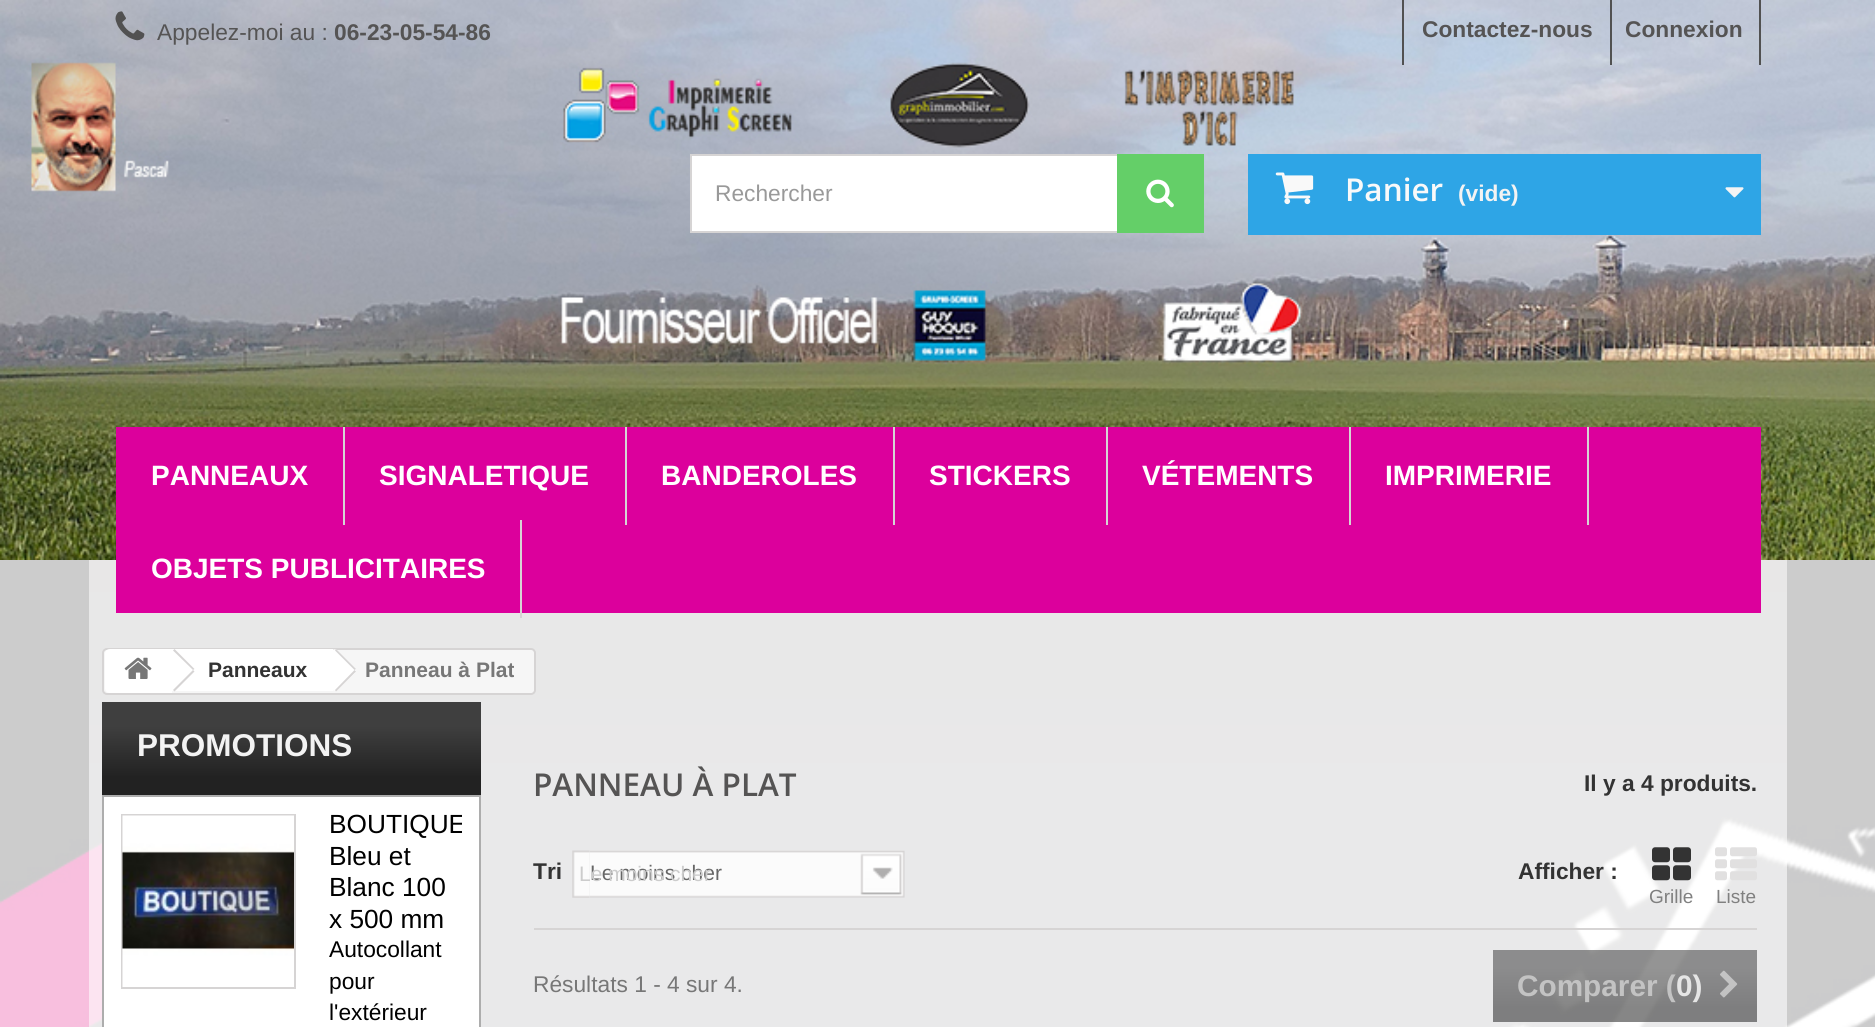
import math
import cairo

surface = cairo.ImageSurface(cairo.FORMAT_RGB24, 1875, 1027)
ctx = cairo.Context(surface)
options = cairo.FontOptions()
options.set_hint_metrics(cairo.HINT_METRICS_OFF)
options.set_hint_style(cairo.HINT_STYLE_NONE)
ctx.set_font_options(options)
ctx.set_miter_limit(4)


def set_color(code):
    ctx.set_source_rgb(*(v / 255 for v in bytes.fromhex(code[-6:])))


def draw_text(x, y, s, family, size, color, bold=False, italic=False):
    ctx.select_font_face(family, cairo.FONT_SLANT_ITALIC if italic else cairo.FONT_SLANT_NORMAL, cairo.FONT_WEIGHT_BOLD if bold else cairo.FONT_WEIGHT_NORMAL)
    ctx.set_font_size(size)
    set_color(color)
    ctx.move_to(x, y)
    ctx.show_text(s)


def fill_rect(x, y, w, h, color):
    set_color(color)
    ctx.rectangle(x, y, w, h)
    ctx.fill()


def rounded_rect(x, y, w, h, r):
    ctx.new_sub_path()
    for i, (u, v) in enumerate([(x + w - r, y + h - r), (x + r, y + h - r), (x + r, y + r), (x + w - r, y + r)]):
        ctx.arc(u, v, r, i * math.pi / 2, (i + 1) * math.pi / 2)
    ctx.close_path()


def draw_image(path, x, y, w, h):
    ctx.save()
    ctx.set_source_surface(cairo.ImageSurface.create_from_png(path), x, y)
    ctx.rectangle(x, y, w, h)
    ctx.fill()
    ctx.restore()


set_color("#ffffff")
ctx.paint()
draw_image("assets/img1.png", 0, 560, 1875, 467)
draw_image("assets/img2.png", 0, 0, 1875, 560)
draw_image("assets/img3.png", 115, 11, 30, 30)
draw_text(157, 40, "Appelez-moi au :", "Liberation Sans", 22.75, "#555454")
draw_text(334, 40, "06-23-05-54-86", "Liberation Sans", 22.75, "#555454", bold=True)
fill_rect(1402, 0, 2, 65, "#515151")
draw_text(1422, 37, "Contactez-nous", "Liberation Sans", 22.75, "#555454", bold=True)
fill_rect(1759, 0, 2, 65, "#515151")
fill_rect(1610, 0, 2, 65, "#515151")
draw_text(1625, 37, "Connexion", "Liberation Sans", 22.75, "#555454", bold=True)
fill_rect(692, 156, 425, 75, "#ffffff")
ctx.rectangle(691, 155, 512, 77)
set_color("#d6d4d4")
ctx.stroke()
draw_text(715, 201, "Rechercher", "Liberation Sans", 22.75, "#999999")
fill_rect(1117, 154, 87, 79, "#64cf68")
draw_image("assets/img4.png", 1146, 179, 28, 29)
fill_rect(1248, 154, 513, 81, "#2ea5e6")
draw_image("assets/img5.png", 1275, 172, 39, 33)
draw_text(1345, 201, "Panier", "Open Sans SemiBold", 31.5, "#f9f9f9")
draw_text(1458, 201, "(vide)", "Liberation Sans", 22.75, "#f3f3f3", bold=True)
draw_image("assets/img6.png", 1725, 187, 19, 11)
fill_rect(116, 427, 1645, 186, "#dc009c")
fill_rect(343, 427, 2, 98, "#d6d4d4")
draw_text(151, 485, "PANNEAUX", "Liberation Sans", 28, "#ffffff", bold=True)
fill_rect(625, 427, 2, 98, "#d6d4d4")
draw_text(379, 485, "SIGNALETIQUE", "Liberation Sans", 28, "#ffffff", bold=True)
fill_rect(893, 427, 2, 98, "#d6d4d4")
draw_text(661, 485, "BANDEROLES", "Liberation Sans", 28, "#ffffff", bold=True)
fill_rect(1106, 427, 2, 98, "#d6d4d4")
draw_text(929, 485, "STICKERS", "Liberation Sans", 28, "#ffffff", bold=True)
fill_rect(1349, 427, 2, 98, "#d6d4d4")
draw_text(1142, 485, "VÉTEMENTS", "Liberation Sans", 28, "#ffffff", bold=True)
fill_rect(1587, 427, 2, 98, "#d6d4d4")
draw_text(1385, 485, "IMPRIMERIE", "Liberation Sans", 28, "#ffffff", bold=True)
fill_rect(520, 520, 2, 98, "#d6d4d4")
draw_text(151, 578, "OBJETS PUBLICITAIRES", "Liberation Sans", 28, "#ffffff", bold=True)
set_color("#f6f6f6")
rounded_rect(103, 649, 432, 45, 4)
ctx.fill_preserve()
set_color("#d6d4d4")
ctx.stroke()
set_color("#ffffff")
ctx.new_path()
ctx.move_to(110, 649)
ctx.line_to(172, 649)
ctx.line_to(172, 693)
ctx.line_to(110, 693)
ctx.curve_to(107, 693, 105, 691, 105, 688)
ctx.line_to(105, 654)
ctx.curve_to(105, 651, 107, 649, 110, 649)
ctx.close_path()
ctx.fill()
draw_image("assets/img7.png", 124, 657, 28, 22)
fill_rect(172, 649, 161, 42, "#ffffff")
set_color("#d6d4d4")
ctx.new_path()
ctx.move_to(174.5, 649)
ctx.line_to(194.5, 669)
ctx.line_to(193, 670)
ctx.line_to(173, 650.5)
ctx.close_path()
ctx.move_to(193, 670)
ctx.line_to(194.5, 671.5)
ctx.line_to(174.5, 691.5)
ctx.line_to(173, 690)
ctx.close_path()
ctx.fill()
draw_text(208, 677, "Panneaux", "Liberation Sans", 21, "#333333", bold=True)
set_color("#ffffff")
ctx.new_path()
ctx.move_to(337, 650)
ctx.line_to(355, 668)
ctx.curve_to(356, 669, 356, 671, 355, 673)
ctx.line_to(337, 690)
ctx.curve_to(336, 691, 334, 691, 332, 690)
ctx.line_to(315, 673)
ctx.curve_to(314, 671, 314, 669, 315, 668)
ctx.line_to(332, 650)
ctx.curve_to(334, 649, 336, 649, 337, 650)
ctx.close_path()
ctx.fill()
set_color("#d6d4d4")
ctx.new_path()
ctx.move_to(336, 649)
ctx.line_to(356, 669)
ctx.line_to(354.5, 670)
ctx.line_to(335, 650.5)
ctx.close_path()
ctx.move_to(354.5, 670)
ctx.line_to(356, 671.5)
ctx.line_to(336, 691.5)
ctx.line_to(335, 690)
ctx.close_path()
ctx.fill()
draw_text(365, 677, "Panneau à Plat", "Liberation Sans", 21, "#777777", bold=True)
gradient = cairo.LinearGradient(291, 795, 291, 702)
gradient.add_color_stop_rgba(0.19, 0.133, 0.133, 0.133, 1)
gradient.add_color_stop_rgba(0.74, 0.247, 0.247, 0.247, 1)
ctx.set_source(gradient)
ctx.rectangle(102, 702, 379, 93)
ctx.fill()
draw_text(137, 756, "PROMOTIONS", "Liberation Sans", 31.5, "#f3f3f3", bold=True)
set_color("#ffffff")
ctx.rectangle(103, 796, 377, 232)
ctx.fill_preserve()
set_color("#adadad")
ctx.stroke()
ctx.rectangle(122, 815, 173, 173)
set_color("#d6d4d4")
ctx.stroke()
draw_image("assets/img8.png", 122, 815, 172, 172)
ctx.save()
ctx.rectangle(329, 814, 133, 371)
ctx.clip()
draw_text(329, 833, "BOUTIQUE", "Liberation Sans", 26.25, "#000000")
ctx.restore()
draw_text(329, 865, "Bleu et", "Liberation Sans", 26.25, "#000000")
draw_text(329, 896, "Blanc 100", "Liberation Sans", 26.25, "#000000")
draw_text(329, 928, "x 500 mm", "Liberation Sans", 26.25, "#000000")
draw_text(329, 957, "Autocollant", "Liberation Sans", 22.75, "#000000")
draw_text(329, 989, "pour", "Liberation Sans", 22.75, "#000000")
draw_text(329, 1020, "l'extérieur", "Liberation Sans", 22.75, "#000000")
draw_text(533, 796, "PANNEAU À PLAT", "Open Sans SemiBold", 31.5, "#555454")
draw_text(1584, 791, "Il y a 4 produits.", "Liberation Sans", 22.75, "#333333", bold=True)
fill_rect(534, 928, 1223, 2, "#d6d4d4")
draw_text(533, 879, "Tri", "Liberation Sans", 22.75, "#333333", bold=True)
draw_image("assets/img9.png", 572, 850, 18, 48)
draw_image("assets/img10.png", 590, 850, 315, 48)
draw_text(590, 880, "Le moins cher", "Liberation Sans", 21, "#666666")
draw_text(579, 881, "Le moins cher", "Liberation Sans", 21, "#cccccc")
draw_text(1518, 879, "Afficher :", "Liberation Sans", 22.75, "#333333", bold=True)
draw_image("assets/img11.png", 1652, 847, 39, 34)
draw_text(1649, 903, "Grille", "Liberation Sans", 19, "#808080")
draw_image("assets/img12.png", 1715, 847, 42, 34)
draw_text(1716, 903, "Liste", "Liberation Sans", 19, "#808080")
draw_text(533, 992, "Résultats 1 - 4 sur 4.", "Liberation Sans", 22.75, "#777777")
draw_text(1517, 996, "Comparer (", "Liberation Sans", 29.75, "#c3c3c3", bold=True)
draw_text(1676, 996, "0)", "Liberation Sans", 29.75, "#e5e5e5", bold=True)
draw_image("assets/img13.png", 1720, 970, 18, 28)
surface.write_to_png("output.png")
